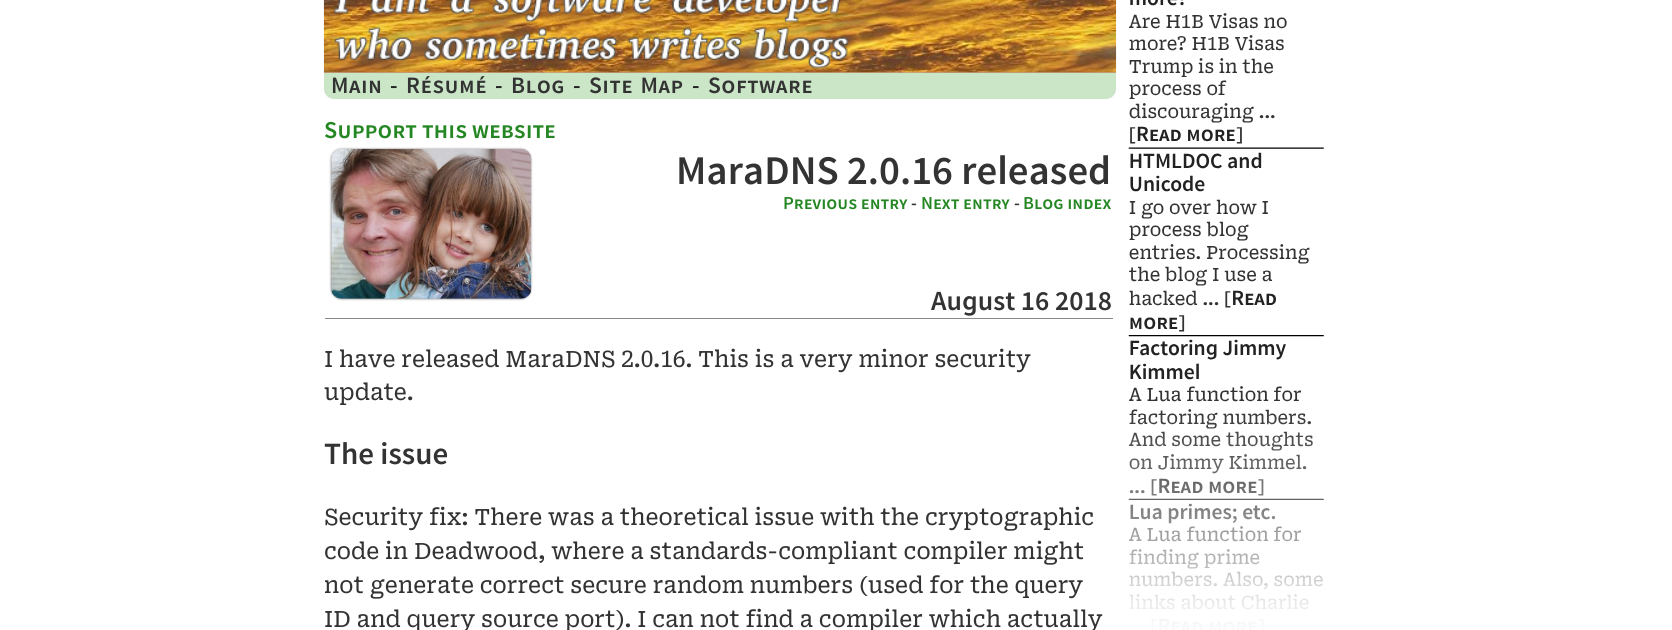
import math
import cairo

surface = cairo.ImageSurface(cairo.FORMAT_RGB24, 1672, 630)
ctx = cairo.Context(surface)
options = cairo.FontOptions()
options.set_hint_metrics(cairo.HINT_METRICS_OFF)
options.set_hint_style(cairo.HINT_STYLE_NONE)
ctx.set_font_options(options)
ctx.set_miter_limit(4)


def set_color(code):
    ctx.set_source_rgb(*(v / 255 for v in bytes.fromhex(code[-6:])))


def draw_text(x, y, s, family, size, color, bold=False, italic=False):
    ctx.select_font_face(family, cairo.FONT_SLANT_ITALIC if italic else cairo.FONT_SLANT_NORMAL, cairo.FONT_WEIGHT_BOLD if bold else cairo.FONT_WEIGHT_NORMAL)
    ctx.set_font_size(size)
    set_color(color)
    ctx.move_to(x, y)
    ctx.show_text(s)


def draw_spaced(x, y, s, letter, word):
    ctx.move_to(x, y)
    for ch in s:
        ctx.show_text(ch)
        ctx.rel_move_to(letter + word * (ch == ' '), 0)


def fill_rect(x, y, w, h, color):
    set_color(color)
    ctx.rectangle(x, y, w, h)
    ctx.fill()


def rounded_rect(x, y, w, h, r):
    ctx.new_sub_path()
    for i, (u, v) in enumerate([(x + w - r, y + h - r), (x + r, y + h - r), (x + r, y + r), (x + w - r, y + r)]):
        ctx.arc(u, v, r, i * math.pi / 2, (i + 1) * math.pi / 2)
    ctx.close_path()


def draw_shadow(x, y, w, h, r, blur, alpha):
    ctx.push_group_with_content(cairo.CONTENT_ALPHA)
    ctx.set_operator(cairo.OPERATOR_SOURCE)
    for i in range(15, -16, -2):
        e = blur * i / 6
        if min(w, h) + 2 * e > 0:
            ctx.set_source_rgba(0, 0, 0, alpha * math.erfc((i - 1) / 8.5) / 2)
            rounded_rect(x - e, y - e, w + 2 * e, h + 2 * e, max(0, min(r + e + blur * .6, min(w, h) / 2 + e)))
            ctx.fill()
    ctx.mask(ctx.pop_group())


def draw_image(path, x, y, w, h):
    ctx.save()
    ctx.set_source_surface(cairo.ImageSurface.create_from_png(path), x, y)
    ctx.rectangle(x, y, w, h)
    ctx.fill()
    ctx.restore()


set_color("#ffffff")
ctx.paint()
fill_rect(324, 72, 792, 1, "#c0a080")
draw_image("assets/img1.png", 323, 0, 794, 73)
draw_image("assets/img2.png", 333, 0, 516, 69)
set_color("#cae6c7")
ctx.new_path()
ctx.move_to(324, 73)
ctx.line_to(1116, 73)
ctx.line_to(1116, 89)
ctx.curve_to(1116, 94.5, 1111.5, 99, 1106, 99)
ctx.line_to(334, 99)
ctx.curve_to(328.5, 99, 324, 94.5, 324, 89)
ctx.close_path()
ctx.fill()
ctx.select_font_face("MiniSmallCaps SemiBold")
ctx.set_font_size(23.5)
set_color("#333333")
draw_spaced(331, 93, "Main", 0.5, 0)
ctx.select_font_face("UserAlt", cairo.FONT_SLANT_NORMAL, cairo.FONT_WEIGHT_BOLD)
set_color("#222222")
draw_spaced(390, 93, "-", 0.5, 0)
ctx.select_font_face("MiniSmallCaps SemiBold")
set_color("#333333")
draw_spaced(406, 93, "Résumé", 0.5, 0)
ctx.select_font_face("UserAlt", cairo.FONT_SLANT_NORMAL, cairo.FONT_WEIGHT_BOLD)
set_color("#222222")
draw_spaced(495, 93, "-", 0.5, 0)
ctx.select_font_face("MiniSmallCaps SemiBold")
set_color("#333333")
draw_spaced(511, 93, "Blog", 0.5, 0)
ctx.select_font_face("UserAlt", cairo.FONT_SLANT_NORMAL, cairo.FONT_WEIGHT_BOLD)
set_color("#222222")
draw_spaced(573, 93, "-", 0.5, 0)
ctx.select_font_face("MiniSmallCaps SemiBold")
set_color("#333333")
draw_spaced(589, 93, "Site Map", 0.5, 2)
ctx.select_font_face("UserAlt", cairo.FONT_SLANT_NORMAL, cairo.FONT_WEIGHT_BOLD)
set_color("#222222")
draw_spaced(692, 93, "-", 0.5, 0)
ctx.select_font_face("MiniSmallCaps SemiBold")
set_color("#333333")
draw_spaced(708, 93, "Software", 0.5, 0)
draw_text(324, 138, "Support this website", "MiniSmallCaps SemiBold", 24.25, "#258723")
set_color("#888888")
draw_shadow(331, 149, 200, 150, 10, 1, 1)
draw_image("assets/img3.png", 331, 148, 201, 151)
draw_text(676, 184, "MaraDNS 2.0.16 released", "UserAlt", 40.75, "#333333", bold=True)
draw_text(783, 209, "Previous entry", "MiniSmallCaps SemiBold", 18.25, "#258723")
draw_text(911, 209, "-", "UserAlt", 18.25, "#333333", bold=True)
draw_text(921, 209, "Next entry", "MiniSmallCaps SemiBold", 18.25, "#258723")
draw_text(1014, 209, "-", "UserAlt", 18.25, "#333333", bold=True)
draw_text(1023, 209, "Blog index", "MiniSmallCaps SemiBold", 18.25, "#258723")
fill_rect(325, 318, 788, 1, "#888888")
draw_text(931, 310, "August 16 2018", "UserAlt", 27.75, "#333333", bold=True)
draw_text(324, 367, "I have released MaraDNS 2.0.16. This is a very minor security", "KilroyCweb", 22.5, "#333333")
draw_text(324, 400, "update.", "KilroyCweb", 22.5, "#333333")
draw_text(324, 464, "The issue", "UserAlt", 31, "#333333", bold=True)
draw_text(324, 525, "Security fix: There was a theoretical issue with the cryptographic", "KilroyCweb", 22.5, "#333333")
draw_text(324, 559, "code in Deadwood, where a standards-compliant compiler might", "KilroyCweb", 22.5, "#333333")
draw_text(324, 593, "not generate correct secure random numbers (used for the query", "KilroyCweb", 22.5, "#333333")
draw_text(324, 627, "ID and query source port). I can not find a compiler which actually", "KilroyCweb", 22.5, "#333333")
draw_image("assets/img4.png", 1128, 0, 196, 630)
surface.write_to_png("output.png")
